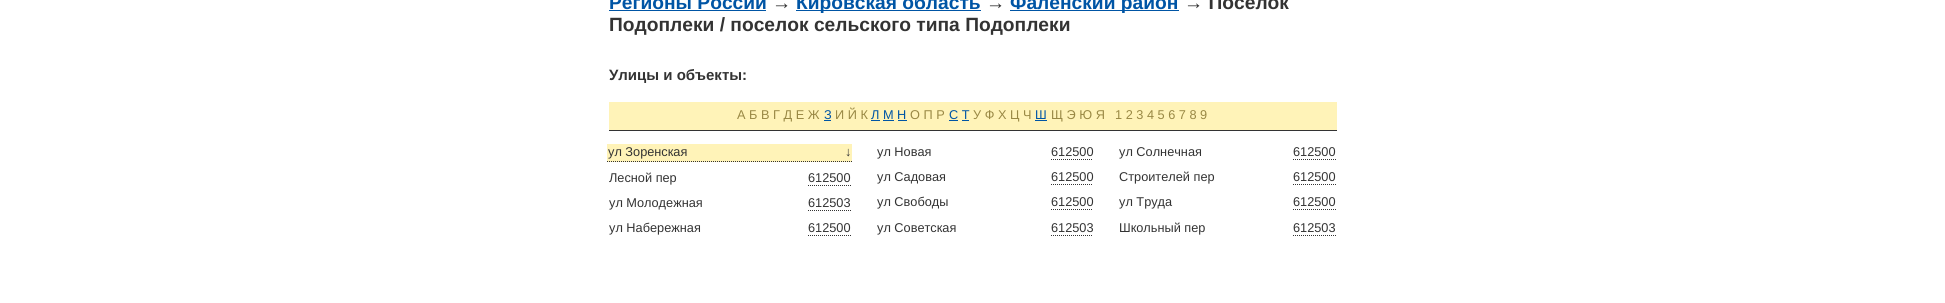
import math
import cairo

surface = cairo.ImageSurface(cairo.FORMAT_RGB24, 1945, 303)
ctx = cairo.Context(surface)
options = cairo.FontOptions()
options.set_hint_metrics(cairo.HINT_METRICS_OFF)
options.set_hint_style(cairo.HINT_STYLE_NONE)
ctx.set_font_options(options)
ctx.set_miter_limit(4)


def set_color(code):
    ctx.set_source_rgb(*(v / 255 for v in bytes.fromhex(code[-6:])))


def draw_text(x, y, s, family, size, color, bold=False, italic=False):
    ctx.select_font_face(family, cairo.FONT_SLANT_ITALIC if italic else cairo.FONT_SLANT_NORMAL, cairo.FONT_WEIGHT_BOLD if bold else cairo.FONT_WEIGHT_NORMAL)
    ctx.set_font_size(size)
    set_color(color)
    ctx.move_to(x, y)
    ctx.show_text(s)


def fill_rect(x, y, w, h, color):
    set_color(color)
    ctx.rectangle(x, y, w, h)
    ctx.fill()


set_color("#ffffff")
ctx.paint()
draw_text(609, 9, "Регионы России", "Liberation Sans", 19.2, "#0055a5", bold=True)
fill_rect(609, 10, 157, 1, "#0055a5")
draw_text(772, 9, "→", "Liberation Sans", 19.2, "#333333", bold=True)
fill_rect(796, 10, 185, 1, "#0055a5")
draw_text(796, 9, "Кировская область", "Liberation Sans", 19.2, "#0055a5", bold=True)
draw_text(986, 9, "→", "Liberation Sans", 19.2, "#333333", bold=True)
fill_rect(1010, 10, 169, 1, "#0055a5")
draw_text(1010, 9, "Фаленский район", "Liberation Sans", 19.2, "#0055a5", bold=True)
draw_text(1184, 9, "→ Поселок", "Liberation Sans", 19.2, "#333333", bold=True)
draw_text(609, 31, "Подоплеки / поселок сельского типа Подоплеки", "Liberation Sans", 19.2, "#333333", bold=True)
draw_text(609, 80, "Улицы и объекты:", "Liberation Sans", 15, "#333333", bold=True)
fill_rect(609, 102, 728, 28, "#fff3b8")
draw_text(737, 119, "А Б В Г Д Е Ж", "Liberation Sans", 12.75, "#998844")
draw_text(824, 119, "З", "Liberation Sans", 12.75, "#0055a5")
fill_rect(824, 120, 7, 1, "#0055a5")
draw_text(835, 119, "И Й К", "Liberation Sans", 12.75, "#998844")
draw_text(871, 119, "Л М Н", "Liberation Sans", 12.75, "#0055a5")
fill_rect(871, 120, 9, 1, "#0055a5")
draw_text(910, 119, "О П Р", "Liberation Sans", 12.75, "#998844")
draw_text(949, 119, "С Т", "Liberation Sans", 12.75, "#0055a5")
fill_rect(949, 120, 9, 1, "#0055a5")
draw_text(973, 119, "У Ф Х Ц Ч", "Liberation Sans", 12.75, "#998844")
draw_text(1035, 119, "Ш", "Liberation Sans", 12.75, "#0055a5")
fill_rect(1035, 120, 12, 1, "#0055a5")
draw_text(1051, 119, "Щ Э Ю Я", "Liberation Sans", 12.75, "#998844")
draw_text(1115, 119, "1 2 3 4 5 6 7 8 9", "Liberation Sans", 12.75, "#998844")
fill_rect(883, 120, 11, 1, "#0055a5")
fill_rect(898, 120, 9, 1, "#0055a5")
fill_rect(962, 120, 7, 1, "#0055a5")
fill_rect(609, 130, 728, 1, "#333333")
fill_rect(607, 144, 245, 18, "#fff3b8")
ctx.new_path()
ctx.move_to(607, 161.5)
ctx.line_to(852, 161.5)
set_color("#333333")
ctx.set_line_width(1)
ctx.set_dash([1, 1])
ctx.stroke()
draw_text(608, 156, "ул Зоренская", "Liberation Sans", 12.75, "#333333")
draw_text(845, 156, "↓", "Liberation Sans", 12.75, "#333333")
draw_text(609, 182, "Лесной пер", "Liberation Sans", 12.75, "#333333")
draw_text(808, 182, "612500", "Liberation Sans", 12.75, "#333333")
ctx.new_path()
ctx.move_to(808, 185.5)
ctx.line_to(851, 185.5)
ctx.stroke()
draw_text(609, 207, "ул Молодежная", "Liberation Sans", 12.75, "#333333")
draw_text(808, 207, "612503", "Liberation Sans", 12.75, "#333333")
ctx.new_path()
ctx.move_to(808, 210.5)
ctx.line_to(851, 210.5)
ctx.stroke()
draw_text(609, 232, "ул Набережная", "Liberation Sans", 12.75, "#333333")
draw_text(808, 232, "612500", "Liberation Sans", 12.75, "#333333")
ctx.new_path()
ctx.move_to(808, 235.5)
ctx.line_to(851, 235.5)
ctx.stroke()
draw_text(877, 156, "ул Новая", "Liberation Sans", 12.75, "#333333")
draw_text(1051, 156, "612500", "Liberation Sans", 12.75, "#333333")
ctx.new_path()
ctx.move_to(1051, 159.5)
ctx.line_to(1093, 159.5)
ctx.stroke()
draw_text(877, 181, "ул Садовая", "Liberation Sans", 12.75, "#333333")
draw_text(1051, 181, "612500", "Liberation Sans", 12.75, "#333333")
ctx.new_path()
ctx.move_to(1051, 184.5)
ctx.line_to(1093, 184.5)
ctx.stroke()
draw_text(877, 206, "ул Свободы", "Liberation Sans", 12.75, "#333333")
draw_text(1051, 206, "612500", "Liberation Sans", 12.75, "#333333")
ctx.new_path()
ctx.move_to(1051, 209.5)
ctx.line_to(1093, 209.5)
ctx.stroke()
draw_text(877, 232, "ул Советская", "Liberation Sans", 12.75, "#333333")
draw_text(1051, 232, "612503", "Liberation Sans", 12.75, "#333333")
ctx.new_path()
ctx.move_to(1051, 235.5)
ctx.line_to(1093, 235.5)
ctx.stroke()
draw_text(1119, 156, "ул Солнечная", "Liberation Sans", 12.75, "#333333")
draw_text(1293, 156, "612500", "Liberation Sans", 12.75, "#333333")
ctx.new_path()
ctx.move_to(1293, 159.5)
ctx.line_to(1336, 159.5)
ctx.stroke()
draw_text(1119, 181, "Строителей пер", "Liberation Sans", 12.75, "#333333")
draw_text(1293, 181, "612500", "Liberation Sans", 12.75, "#333333")
ctx.new_path()
ctx.move_to(1293, 184.5)
ctx.line_to(1336, 184.5)
ctx.stroke()
draw_text(1119, 206, "ул Труда", "Liberation Sans", 12.75, "#333333")
draw_text(1293, 206, "612500", "Liberation Sans", 12.75, "#333333")
ctx.new_path()
ctx.move_to(1293, 209.5)
ctx.line_to(1336, 209.5)
ctx.stroke()
draw_text(1119, 232, "Школьный пер", "Liberation Sans", 12.75, "#333333")
draw_text(1293, 232, "612503", "Liberation Sans", 12.75, "#333333")
ctx.new_path()
ctx.move_to(1293, 235.5)
ctx.line_to(1336, 235.5)
ctx.stroke()
surface.write_to_png("output.png")
